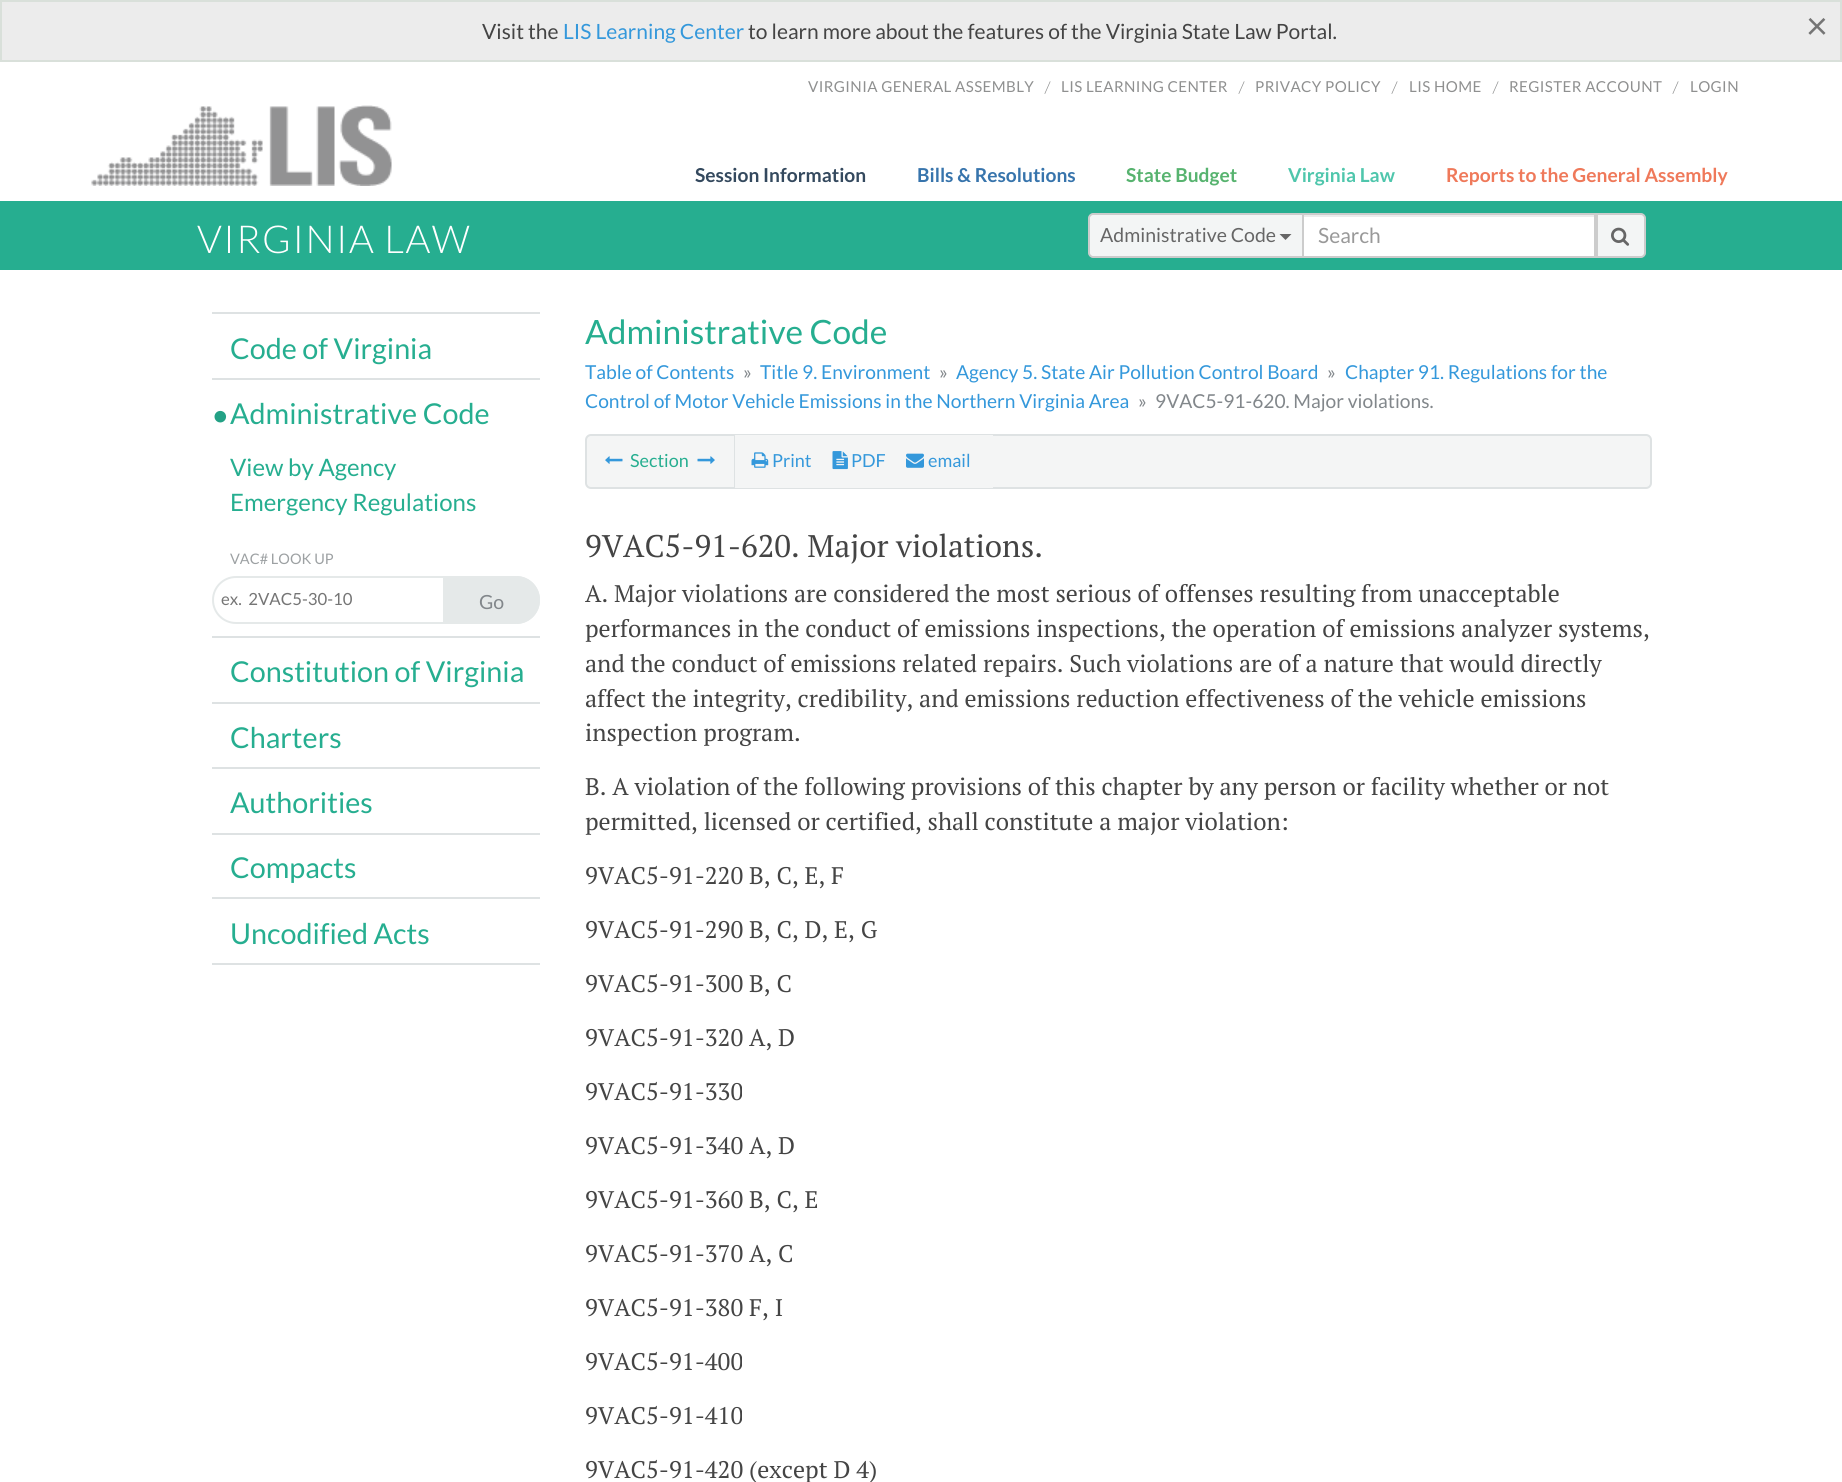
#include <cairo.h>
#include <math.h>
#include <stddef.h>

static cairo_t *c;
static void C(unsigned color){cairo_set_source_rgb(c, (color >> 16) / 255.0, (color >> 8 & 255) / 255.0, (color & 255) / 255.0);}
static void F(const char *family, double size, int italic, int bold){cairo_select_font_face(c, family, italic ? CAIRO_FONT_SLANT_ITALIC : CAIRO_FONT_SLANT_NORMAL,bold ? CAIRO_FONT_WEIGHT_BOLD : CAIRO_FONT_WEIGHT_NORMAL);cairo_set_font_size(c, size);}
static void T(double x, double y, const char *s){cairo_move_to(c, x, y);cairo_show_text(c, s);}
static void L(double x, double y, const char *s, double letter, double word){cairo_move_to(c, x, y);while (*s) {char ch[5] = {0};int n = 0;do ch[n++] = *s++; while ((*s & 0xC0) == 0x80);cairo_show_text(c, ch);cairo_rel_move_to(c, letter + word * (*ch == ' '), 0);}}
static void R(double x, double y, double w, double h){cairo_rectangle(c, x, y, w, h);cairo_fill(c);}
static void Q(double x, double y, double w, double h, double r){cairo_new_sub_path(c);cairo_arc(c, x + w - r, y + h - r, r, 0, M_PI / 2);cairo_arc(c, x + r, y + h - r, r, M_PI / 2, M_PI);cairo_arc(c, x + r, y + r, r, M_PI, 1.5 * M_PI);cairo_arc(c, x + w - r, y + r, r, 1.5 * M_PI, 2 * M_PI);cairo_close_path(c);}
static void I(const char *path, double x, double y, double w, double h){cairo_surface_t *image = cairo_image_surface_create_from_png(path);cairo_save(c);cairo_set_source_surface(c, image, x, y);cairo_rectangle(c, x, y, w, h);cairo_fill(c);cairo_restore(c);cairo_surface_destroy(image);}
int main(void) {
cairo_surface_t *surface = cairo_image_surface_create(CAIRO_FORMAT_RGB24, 1842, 1482);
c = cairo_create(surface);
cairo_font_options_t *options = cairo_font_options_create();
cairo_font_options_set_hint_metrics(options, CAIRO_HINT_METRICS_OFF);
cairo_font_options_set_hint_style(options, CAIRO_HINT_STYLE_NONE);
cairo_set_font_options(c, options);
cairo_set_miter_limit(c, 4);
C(0xffffff);
cairo_paint(c);
C(0xececec);
cairo_rectangle(c,1,1,1840,60);
cairo_fill_preserve(c);
C(0xd9e0da);
cairo_stroke(c);
F("Lato",21,0,0);
C(0x444444);
T(482,39,"Visit the");
C(0x3498db);
T(563,39,"LIS Learning Center");
C(0x444444);
T(748,39,"to learn more about the features of the Virginia State Law Portal.");
F("Lato",38,0,0);
C(0x757575);
T(1806,39,"×");
F("Lato",15.1,0,0);
C(0x8f9090);
L(808,92,"VIRGINIA GENERAL ASSEMBLY",.4,0);
F("PT Serif",15.1,0,0);
T(1045,92,"/");
F("Lato",15.1,0,0);
L(1061,92,"LIS LEARNING CENTER",.4,0);
F("PT Serif",15.1,0,0);
T(1239,92,"/");
F("Lato",15.1,0,0);
L(1255,92,"PRIVACY POLICY",.4,0);
F("PT Serif",15.1,0,0);
T(1392,92,"/");
F("Lato",15.1,0,0);
L(1409,92,"LIS HOME",.4,0);
F("PT Serif",15.1,0,0);
T(1493,92,"/");
F("Lato",15.1,0,0);
L(1509,92,"REGISTER ACCOUNT",.4,0);
F("PT Serif",15.1,0,0);
T(1673,92,"/");
F("Lato",15.1,0,0);
L(1690,92,"LOGIN",.4,0);
I("1.png",91,105,301,81);
F("Lato",19.2,0,1);
C(0x34495e);
T(695,182,"Session Information");
C(0x3774ac);
T(917,182,"Bills & Resolutions");
C(0x57b36f);
T(1126,182,"State Budget");
C(0x4fc6ac);
T(1288,182,"Virginia Law");
C(0xef795a);
T(1446,182,"Reports to the General Assembly");
C(0x26ae90);
R(0,201,1842,69);
F("Lato Light",38.5,0,0);
C(0xffffff);
L(197,253,"VIRGINIA LAW",1.5,0);
R(1304,217,290,39);
C(0xececec);
R(1304,215,291,2);
cairo_rectangle(c,1303,214,292,43);
C(0xcccccc);
cairo_stroke(c);
C(0xf3f5f5);
cairo_new_path(c);
cairo_move_to(c,1093,214);
cairo_line_to(c,1303,214);
cairo_line_to(c,1303,257);
cairo_line_to(c,1093,257);
cairo_curve_to(c,1091,257,1089,255,1089,253);
cairo_line_to(c,1089,218);
cairo_curve_to(c,1089,216,1091,214,1093,214);
cairo_close_path(c);
cairo_fill_preserve(c);
C(0xcccccc);
cairo_stroke(c);
F("Lato",19.5,0,0);
C(0x666666);
T(1100,242,"Administrative Code");
cairo_new_path(c);
cairo_move_to(c,1279.5,234);
cairo_line_to(c,1291.5,234);
cairo_line_to(c,1285.5,240);
cairo_close_path(c);
cairo_fill(c);
F("Lato",21,0,0);
C(0x999999);
T(1318,243,"Search");
C(0xf3f5f5);
cairo_new_path(c);
cairo_move_to(c,1597,214);
cairo_line_to(c,1641,214);
cairo_curve_to(c,1643,214,1645,216,1645,218);
cairo_line_to(c,1645,253);
cairo_curve_to(c,1645,255,1643,257,1641,257);
cairo_line_to(c,1597,257);
cairo_close_path(c);
cairo_fill_preserve(c);
C(0xcccccc);
cairo_stroke(c);
I("2.png",1611,227,19,19);
C(0xdee2e3);
R(212,312,328,2);
F("Lato",28.75,0,0);
C(0x26ae90);
T(230,359,"Code of Virginia");
C(0xdee2e3);
R(212,378,328,2);
I("3.png",214,410,13,13);
C(0x26ae90);
T(230,424,"Administrative Code");
F("Lato",24,0,0);
T(230,476,"View by Agency");
T(230,511,"Emergency Regulations");
F("Lato",14.5,0,0);
C(0x9da1a3);
T(230,564,"VAC# LOOK UP");
Q(213,577,326,46,23);
C(0xe5e9e9);
cairo_stroke(c);
F("Lato",16.75,0,0);
C(0x757575);
T(221,605,"ex.  2VAC5-30-10");
C(0xe5e9e9);
cairo_new_path(c);
cairo_move_to(c,443,576);
cairo_line_to(c,516,576);
cairo_curve_to(c,529.5,576,540,586.5,540,600);
cairo_curve_to(c,540,613.5,529.5,624,516,624);
cairo_line_to(c,443,624);
cairo_close_path(c);
cairo_fill(c);
F("Lato",19.5,0,0);
C(0x82878b);
T(479,609,"Go");
C(0xdee2e3);
R(212,636,328,2);
F("Lato",28.75,0,0);
C(0x26ae90);
T(230,682,"Constitution of Virginia");
C(0xdee2e3);
R(212,702,328,2);
C(0x26ae90);
T(230,748,"Charters");
C(0xdee2e3);
R(212,767,328,2);
C(0x26ae90);
T(230,813,"Authorities");
C(0xdee2e3);
R(212,833,328,2);
C(0x26ae90);
T(230,878,"Compacts");
C(0xdee2e3);
R(212,897,328,2);
R(212,963,328,2);
C(0x26ae90);
T(230,944,"Uncodified Acts");
F("Lato",33.5,0,0);
T(585,344,"Administrative Code");
F("Lato",19.2,0,0);
C(0x3498db);
T(585,379,"Table of Contents");
C(0x82878b);
T(743,379,"»");
C(0x3498db);
T(760,379,"Title 9. Environment");
C(0x82878b);
T(939,379,"»");
C(0x3498db);
T(956,379,"Agency 5. State Air Pollution Control Board");
C(0x82878b);
T(1327,379,"»");
C(0x3498db);
T(1345,379,"Chapter 91. Regulations for the");
T(585,408,"Control of Motor Vehicle Emissions in the Northern Virginia Area");
C(0x82878b);
T(1138,408,"»");
T(1155,408,"9VAC5-91-620. Major violations.");
C(0xf4f5f5);
Q(586,435,1065,53,5);
cairo_fill_preserve(c);
C(0xdee2e3);
cairo_stroke(c);
R(734,435,1,53);
I("4.png",605,456,18,8);
F("Lato",18,0,0);
C(0x26ae90);
T(630,467,"Section");
I("5.png",697,456,18,8);
C(0xf4f5f5);
R(735,435,258,53);
I("6.png",751,452,18,16);
C(0x3498db);
T(772,467,"Print");
I("7.png",832,451,16,19);
T(851,467,"PDF");
I("8.png",906,453,18,15);
T(928,467,"email");
F("PT Serif",31.25,0,0);
C(0x444444);
T(585,557,"9VAC5-91-620. Major violations.");
F("PT Serif",24,0,0);
T(585,602,"A. Major violations are considered the most serious of offenses resulting from unacceptable");
T(585,637,"performances in the conduct of emissions inspections, the operation of emissions analyzer systems,");
T(585,672,"and the conduct of emissions related repairs. Such violations are of a nature that would directly");
T(585,707,"affect the integrity, credibility, and emissions reduction effectiveness of the vehicle emissions");
T(585,741,"inspection program.");
T(585,795,"B. A violation of the following provisions of this chapter by any person or facility whether or not");
T(585,830,"permitted, licensed or certified, shall constitute a major violation:");
T(585,884,"9VAC5-91-220 B, C, E, F");
T(585,938,"9VAC5-91-290 B, C, D, E, G");
T(585,992,"9VAC5-91-300 B, C");
T(585,1046,"9VAC5-91-320 A, D");
T(585,1100,"9VAC5-91-330");
T(585,1154,"9VAC5-91-340 A, D");
T(585,1208,"9VAC5-91-360 B, C, E");
T(585,1262,"9VAC5-91-370 A, C");
T(585,1316,"9VAC5-91-380 F, I");
T(585,1370,"9VAC5-91-400");
T(585,1424,"9VAC5-91-410");
T(585,1478,"9VAC5-91-420 (except D 4)");
cairo_surface_write_to_png(surface, "o.png");
cairo_font_options_destroy(options);
cairo_destroy(c);
cairo_surface_destroy(surface);
return 0;
}
